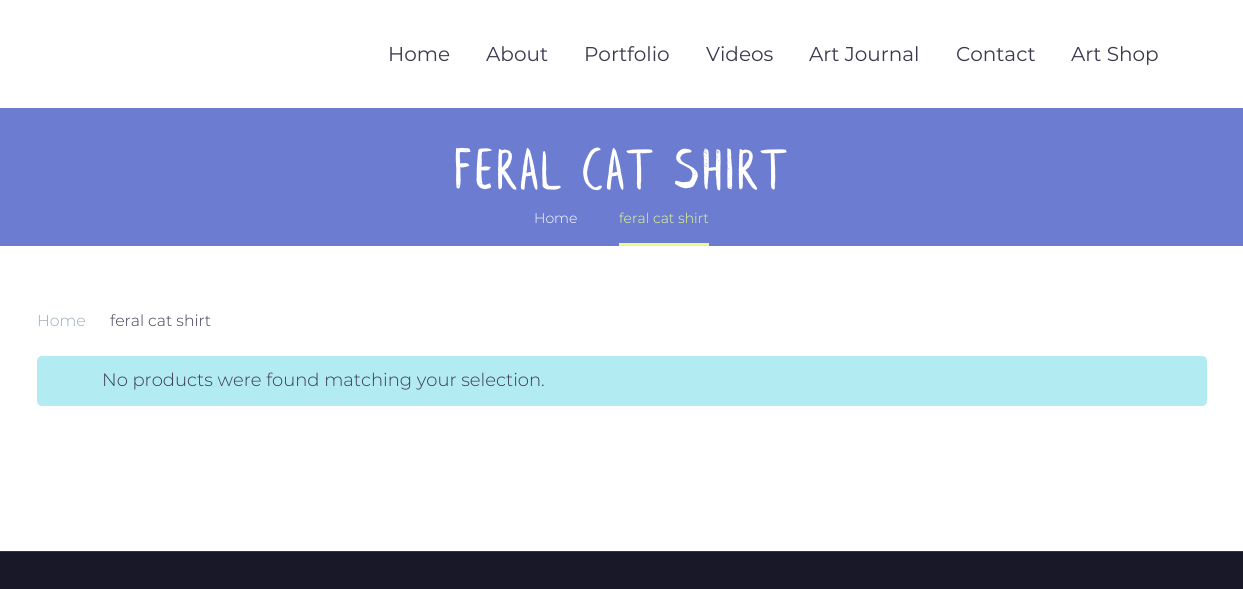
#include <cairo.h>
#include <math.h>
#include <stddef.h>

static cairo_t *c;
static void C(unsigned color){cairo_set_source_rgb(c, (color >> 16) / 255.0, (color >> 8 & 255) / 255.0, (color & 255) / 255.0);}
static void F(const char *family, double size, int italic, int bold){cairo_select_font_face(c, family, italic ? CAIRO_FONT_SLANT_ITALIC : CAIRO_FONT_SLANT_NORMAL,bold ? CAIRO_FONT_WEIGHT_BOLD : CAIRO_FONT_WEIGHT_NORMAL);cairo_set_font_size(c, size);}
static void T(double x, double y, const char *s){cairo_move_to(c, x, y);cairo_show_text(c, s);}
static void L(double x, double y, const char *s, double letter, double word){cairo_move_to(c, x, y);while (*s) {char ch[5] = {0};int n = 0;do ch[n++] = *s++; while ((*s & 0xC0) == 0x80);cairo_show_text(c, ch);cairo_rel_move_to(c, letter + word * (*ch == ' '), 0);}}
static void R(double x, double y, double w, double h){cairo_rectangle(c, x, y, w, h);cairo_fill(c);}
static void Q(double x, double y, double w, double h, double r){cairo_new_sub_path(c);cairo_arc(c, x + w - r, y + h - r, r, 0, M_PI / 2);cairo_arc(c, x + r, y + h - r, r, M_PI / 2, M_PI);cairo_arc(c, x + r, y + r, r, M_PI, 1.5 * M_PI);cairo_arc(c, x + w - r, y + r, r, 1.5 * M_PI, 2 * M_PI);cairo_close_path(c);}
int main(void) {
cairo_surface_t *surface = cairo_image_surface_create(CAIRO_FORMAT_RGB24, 1243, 589);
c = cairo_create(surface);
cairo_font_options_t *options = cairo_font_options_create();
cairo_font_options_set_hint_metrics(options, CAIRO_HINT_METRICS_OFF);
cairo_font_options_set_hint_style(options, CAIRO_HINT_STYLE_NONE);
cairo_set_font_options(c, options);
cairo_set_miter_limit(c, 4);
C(0xffffff);
cairo_paint(c);
F("Montserrat Thin",20,0,0);
C(0x3c3950);
T(388,61,"Home");
T(486,61,"About");
T(584,61,"Portfolio");
T(706,61,"Videos");
T(809,61,"Art Journal");
T(956,61,"Contact");
T(1071,61,"Art Shop");
C(0x6c7cd0);
R(0,108,1243,138);
F("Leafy",60,0,0);
C(0xffffff);
L(454,190,"feral cat shirt",3,0);
F("Montserrat Light",14,0,0);
T(534,223,"Home");
C(0xe7ff89);
R(619,243,90,3);
T(619,223,"feral cat shirt");
F("Montserrat Light",15.75,0,0);
C(0x99a9b5);
T(37,326,"Home");
C(0x3c3950);
T(110,326,"feral cat shirt");
C(0xb2ebf2);
Q(37,356,1170,50,5);
cairo_fill(c);
F("Montserrat Light",18,0,0);
C(0x3c3950);
T(102,386,"No products were found matching your selection.");
C(0x181828);
R(0,552,1243,37);
C(0x313646);
R(0,551,1243,1);
cairo_surface_write_to_png(surface, "o.png");
cairo_font_options_destroy(options);
cairo_destroy(c);
cairo_surface_destroy(surface);
return 0;
}
